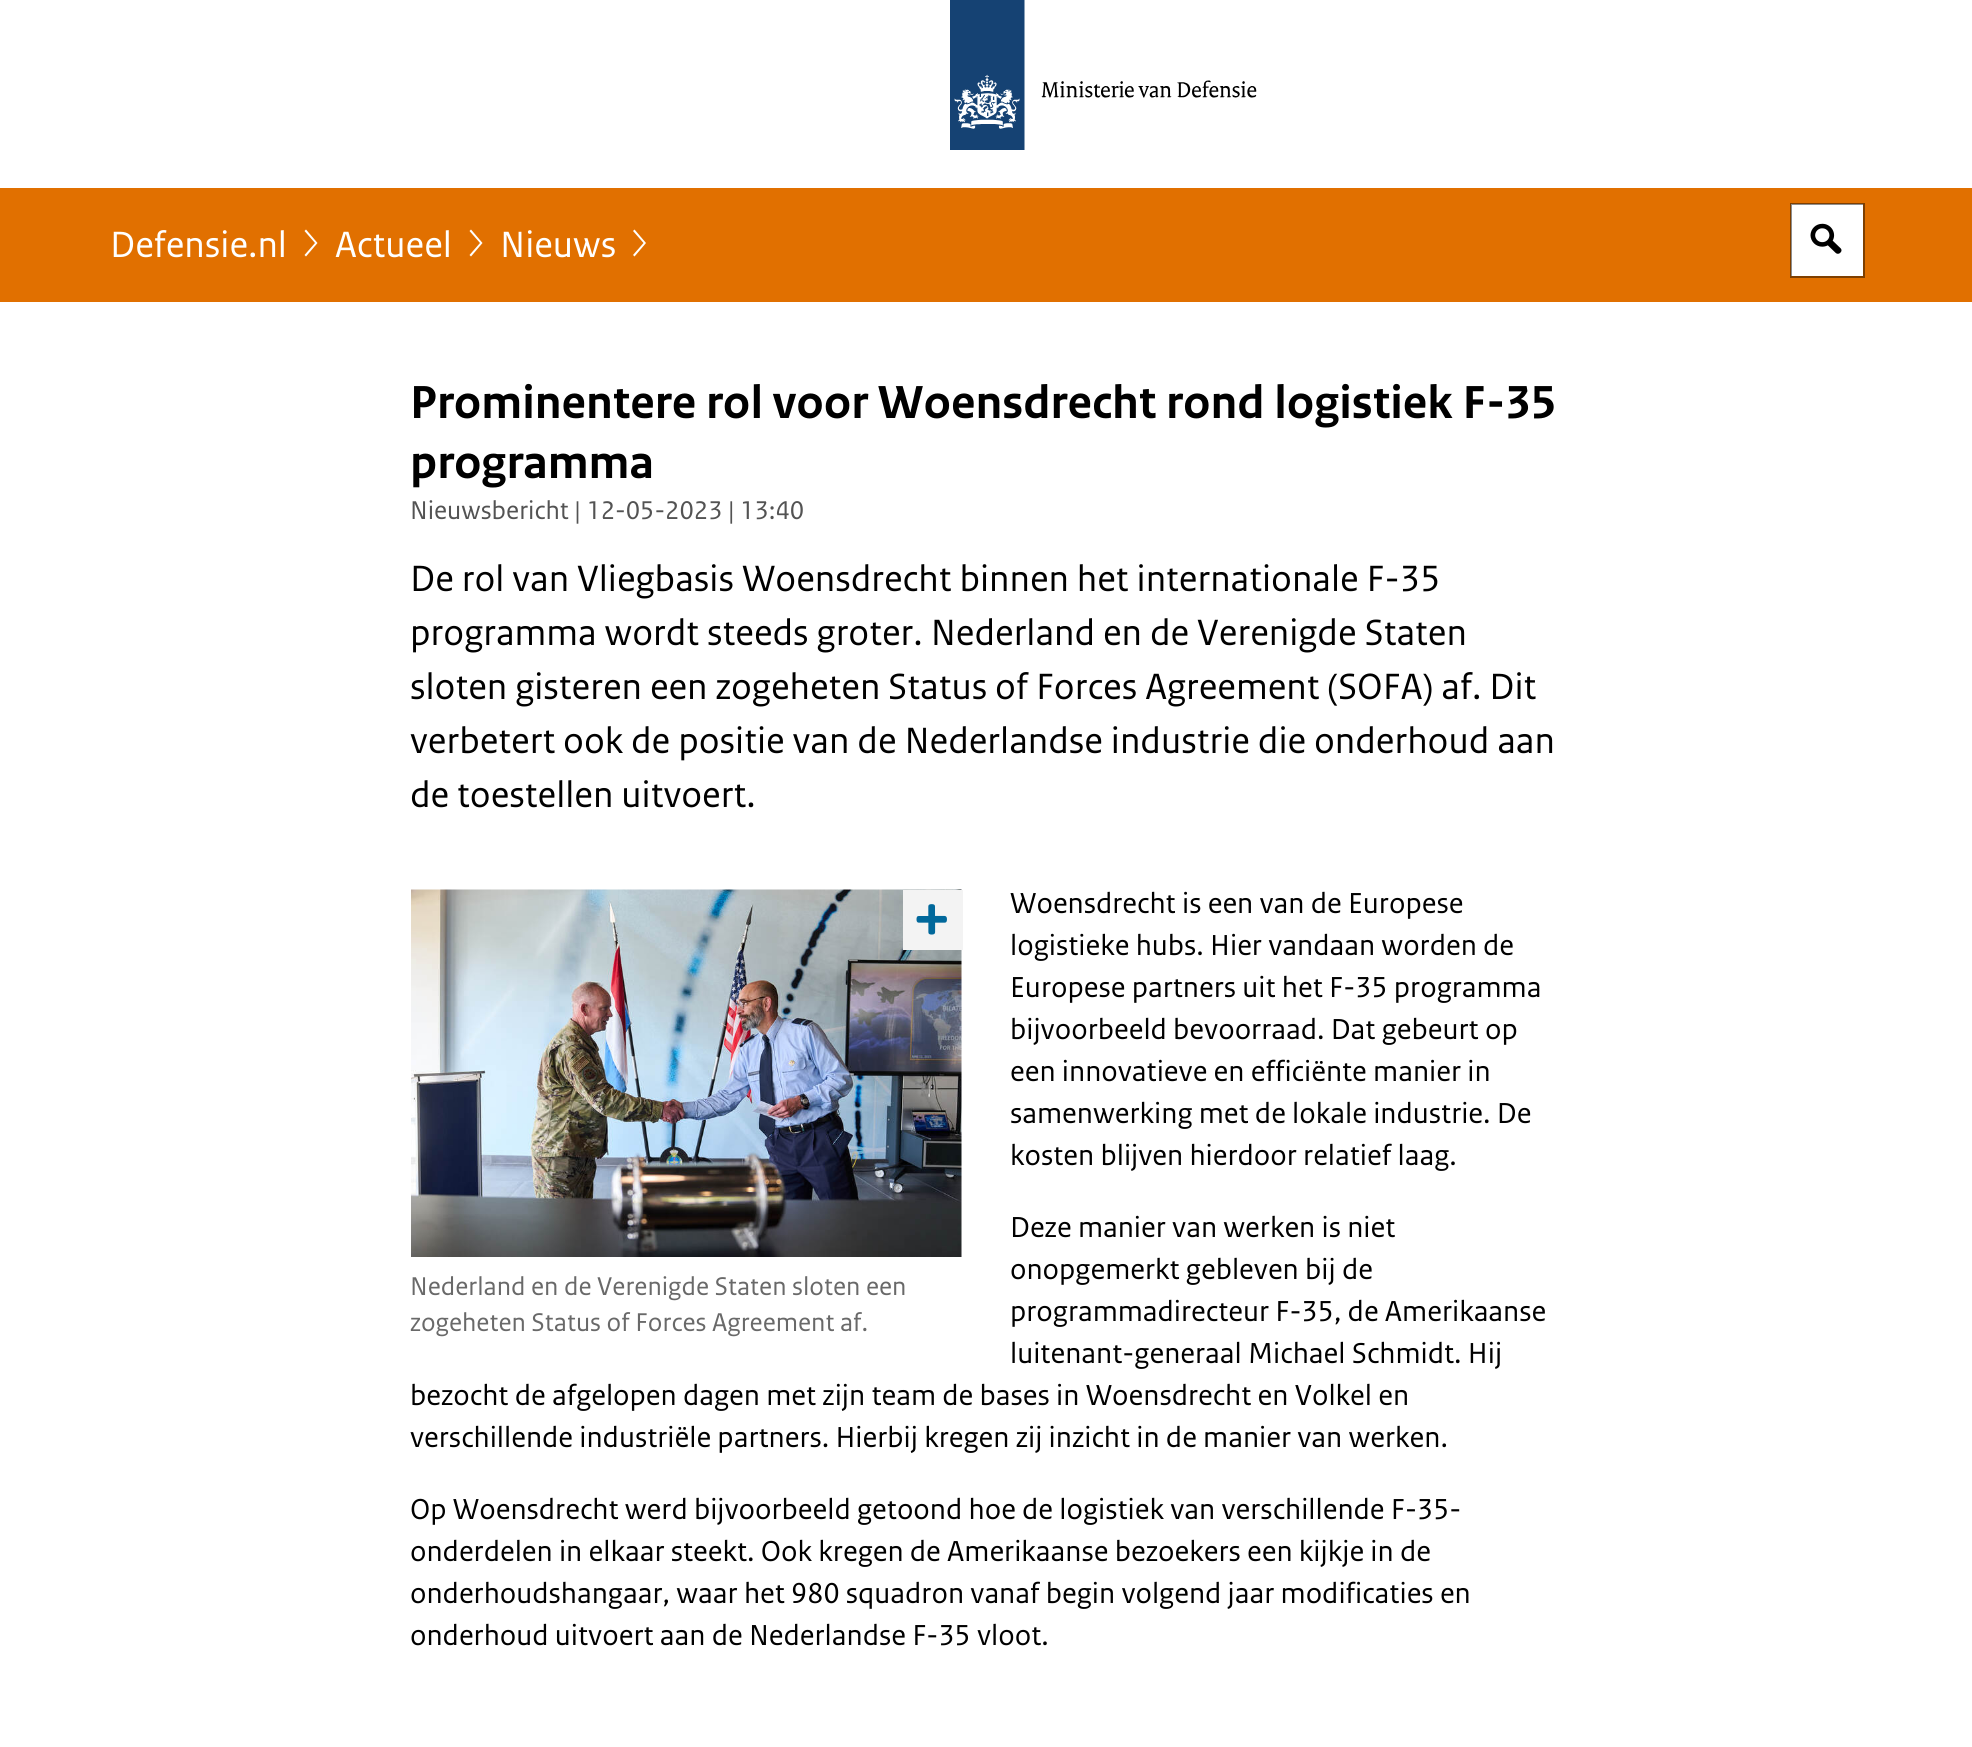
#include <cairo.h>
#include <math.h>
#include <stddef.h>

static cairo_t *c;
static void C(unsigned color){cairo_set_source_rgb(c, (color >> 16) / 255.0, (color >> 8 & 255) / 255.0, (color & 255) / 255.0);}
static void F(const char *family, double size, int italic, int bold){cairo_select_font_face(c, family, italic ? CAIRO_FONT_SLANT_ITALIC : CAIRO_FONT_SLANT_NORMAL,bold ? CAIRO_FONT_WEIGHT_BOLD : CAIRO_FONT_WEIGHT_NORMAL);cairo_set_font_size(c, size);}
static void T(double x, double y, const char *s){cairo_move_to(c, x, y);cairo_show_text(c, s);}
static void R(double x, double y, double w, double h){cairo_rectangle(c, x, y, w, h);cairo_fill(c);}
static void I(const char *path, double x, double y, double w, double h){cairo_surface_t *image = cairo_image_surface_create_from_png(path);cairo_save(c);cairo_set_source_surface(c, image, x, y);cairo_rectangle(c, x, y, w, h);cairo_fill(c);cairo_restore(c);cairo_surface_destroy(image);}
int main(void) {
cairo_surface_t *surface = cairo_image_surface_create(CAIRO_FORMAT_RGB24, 1972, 1747);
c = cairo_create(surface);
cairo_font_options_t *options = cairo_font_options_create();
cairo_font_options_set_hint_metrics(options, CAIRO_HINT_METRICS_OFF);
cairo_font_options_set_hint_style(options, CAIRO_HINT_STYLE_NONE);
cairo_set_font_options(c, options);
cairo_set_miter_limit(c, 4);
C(0xffffff);
cairo_paint(c);
I("1.png",950,0,307,150);
C(0xe17000);
R(0,188,1972,114);
F("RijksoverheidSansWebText",38.45,0,0);
C(0xffffff);
T(110,257,"Defensie.nl");
cairo_new_path(c);
cairo_move_to(c,306,256.5);
cairo_line_to(c,304.5,255);
cairo_line_to(c,315,243);
cairo_line_to(c,304.5,231);
cairo_line_to(c,306,229.5);
cairo_line_to(c,317.5,243);
cairo_close_path(c);
cairo_fill(c);
T(335,257,"Actueel");
cairo_new_path(c);
cairo_move_to(c,471,256.5);
cairo_line_to(c,469.5,255);
cairo_line_to(c,480,243);
cairo_line_to(c,469.5,231);
cairo_line_to(c,471,229.5);
cairo_line_to(c,482.5,243);
cairo_close_path(c);
cairo_fill(c);
T(500,257,"Nieuws");
cairo_new_path(c);
cairo_move_to(c,634.5,256.5);
cairo_line_to(c,633,255);
cairo_line_to(c,643.5,243);
cairo_line_to(c,633,231);
cairo_line_to(c,634.5,229.5);
cairo_line_to(c,646,243);
cairo_close_path(c);
cairo_fill(c);
R(1791,204,72,72);
cairo_rectangle(c,1791,204,73,73);
cairo_set_source_rgba(c,0,0,0,0.44);
cairo_stroke(c);
I("2.png",1810,223,32,31);
F("RijksoverheidSansWebText",48.65,0,1);
C(0x000000);
T(410,418,"Prominentere rol voor Woensdrecht rond logistiek F-35");
T(410,478,"programma");
F("RijksoverheidSansWebText",27,0,0);
C(0x535353);
T(410,519,"Nieuwsbericht | 12-05-2023 | 13:40");
F("RijksoverheidSansWebText",38.45,0,0);
C(0x000000);
T(410,591,"De rol van Vliegbasis Woensdrecht binnen het internationale F-35");
T(410,645,"programma wordt steeds groter. Nederland en de Verenigde Staten");
T(410,699,"sloten gisteren een zogeheten");
T(888,699,"Status of Forces Agreement");
T(1327,699,"(SOFA) af. Dit");
T(410,753,"verbetert ook de positie van de Nederlandse industrie die onderhoud aan");
T(410,807,"de toestellen uitvoert.");
F("RijksoverheidSansWebText",30.4,0,0);
T(1010,913,"Woensdrecht is een van de Europese");
T(1010,955,"logistieke hubs. Hier vandaan worden de");
T(1010,997,"Europese partners uit het F-35 programma");
T(1010,1039,"bijvoorbeeld bevoorraad. Dat gebeurt op");
T(1010,1081,"een innovatieve en efficiënte manier in");
T(1010,1123,"samenwerking met de lokale industrie. De");
T(1010,1165,"kosten blijven hierdoor relatief laag.");
T(1010,1237,"Deze manier van werken is niet");
T(1010,1279,"onopgemerkt gebleven bij de");
T(1010,1321,"programmadirecteur F-35, de Amerikaanse");
T(1010,1363,"luitenant-generaal Michael Schmidt. Hij");
T(410,1405,"bezocht de afgelopen dagen met zijn team de bases in Woensdrecht en Volkel en");
T(410,1447,"verschillende industriële partners. Hierbij kregen zij inzicht in de manier van werken.");
I("3.png",411,889,551,368);
C(0xf3f3f3);
R(903,890,60,60);
I("4.png",916,904,31,31);
F("RijksoverheidSansWebText",27,0,0);
C(0x696969);
T(410,1295,"Nederland en de Verenigde Staten sloten een");
T(410,1331,"zogeheten Status of Forces Agreement af.");
F("RijksoverheidSansWebText",30.4,0,0);
C(0x000000);
T(410,1519,"Op Woensdrecht werd bijvoorbeeld getoond hoe de logistiek van verschillende F-35-");
T(410,1561,"onderdelen in elkaar steekt. Ook kregen de Amerikaanse bezoekers een kijkje in de");
T(410,1603,"onderhoudshangaar, waar het 980 squadron vanaf begin volgend jaar modificaties en");
T(410,1645,"onderhoud uitvoert aan de Nederlandse F-35 vloot.");
cairo_surface_write_to_png(surface, "o.png");
cairo_font_options_destroy(options);
cairo_destroy(c);
cairo_surface_destroy(surface);
return 0;
}
